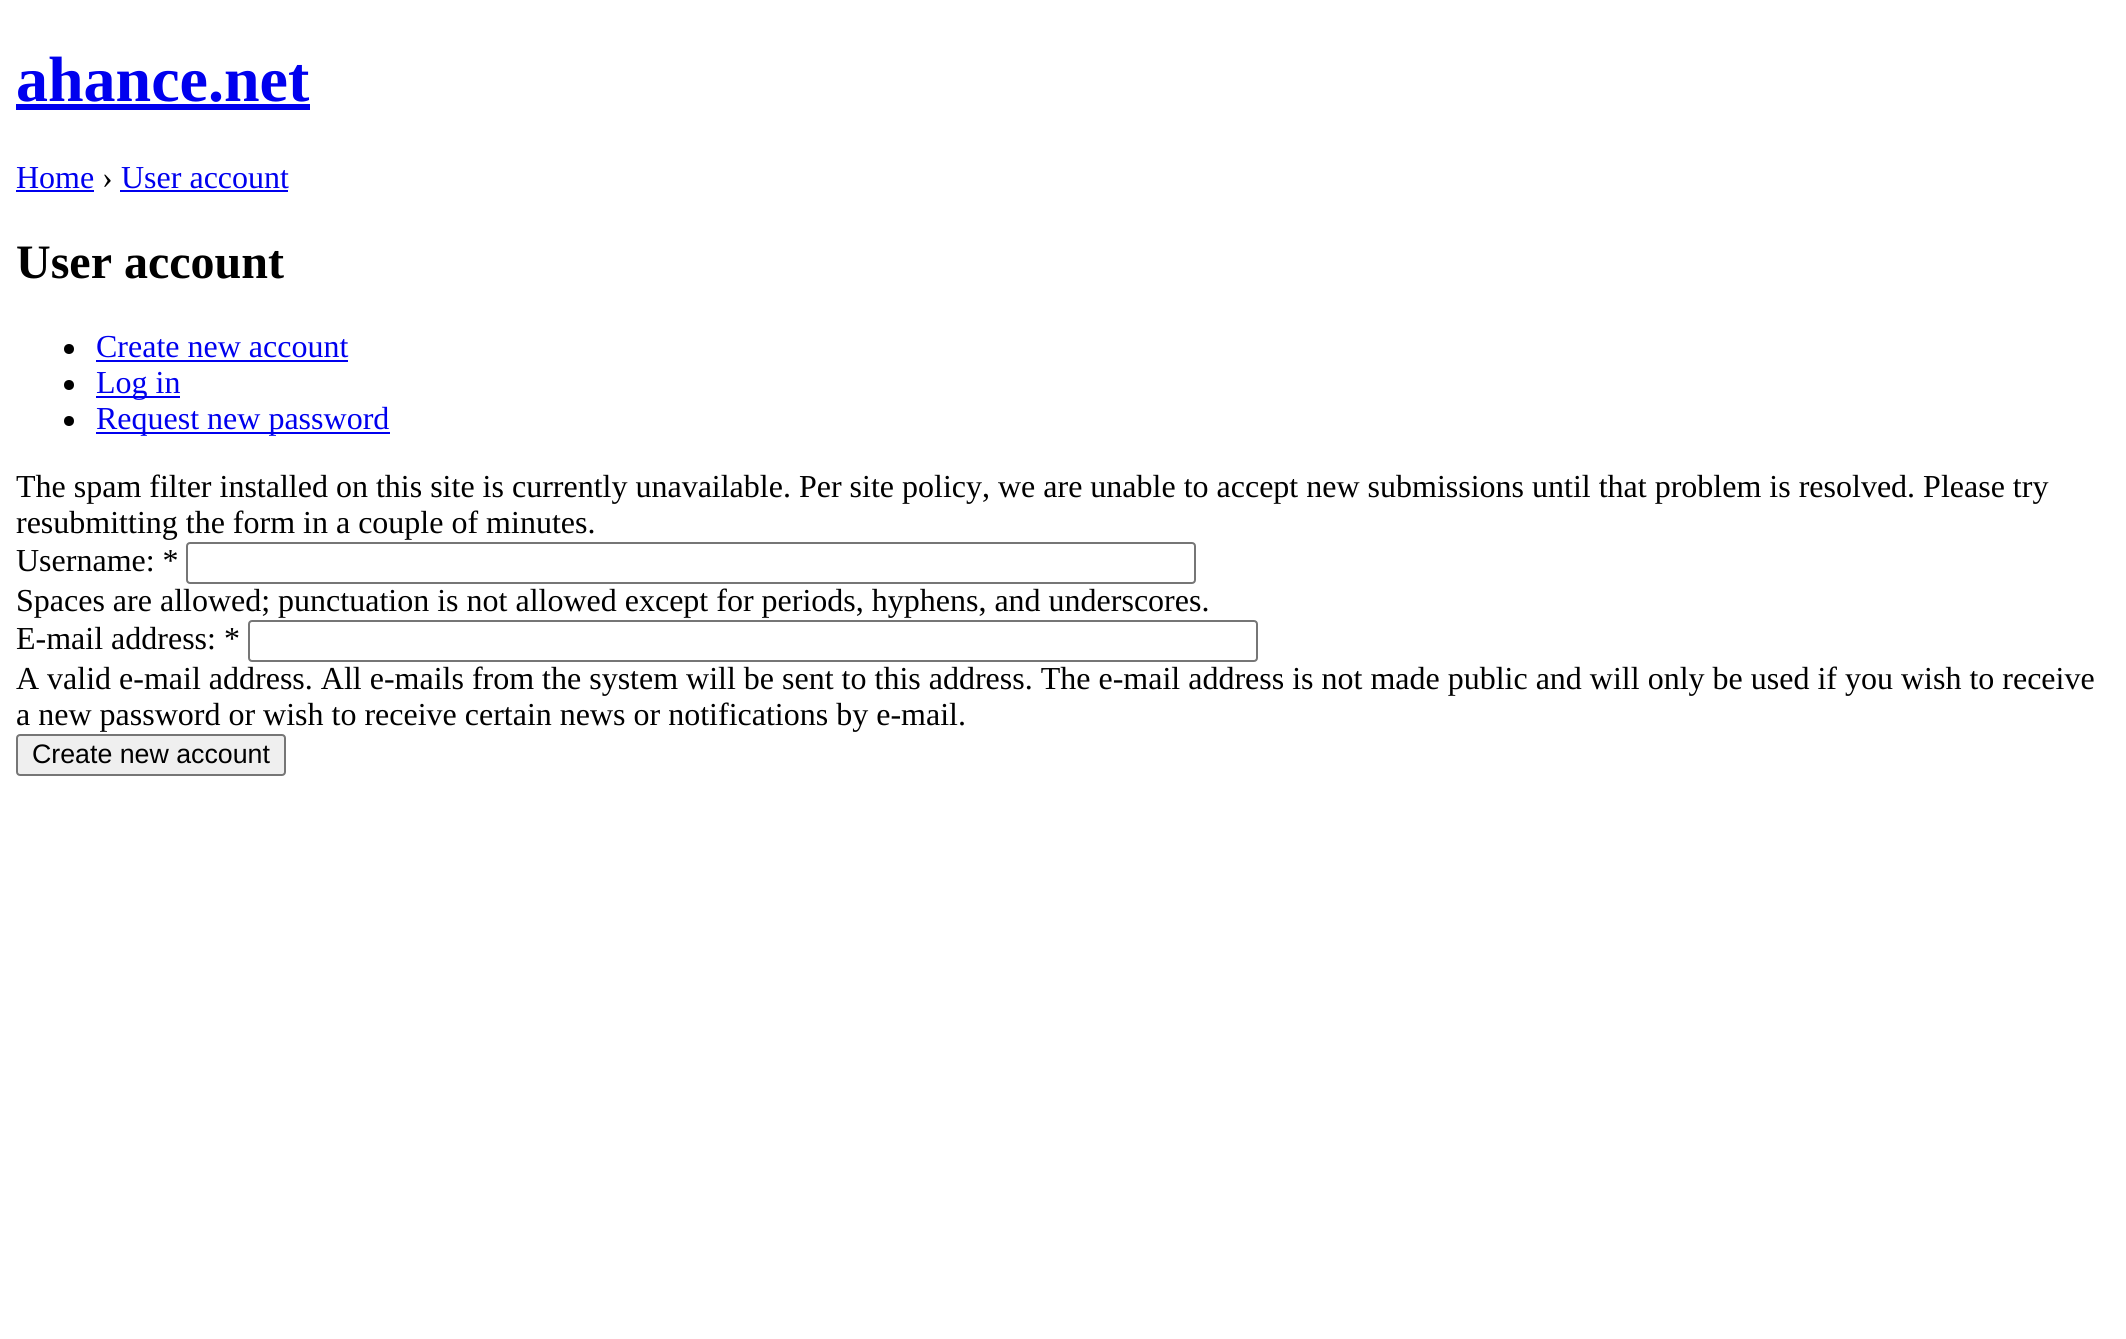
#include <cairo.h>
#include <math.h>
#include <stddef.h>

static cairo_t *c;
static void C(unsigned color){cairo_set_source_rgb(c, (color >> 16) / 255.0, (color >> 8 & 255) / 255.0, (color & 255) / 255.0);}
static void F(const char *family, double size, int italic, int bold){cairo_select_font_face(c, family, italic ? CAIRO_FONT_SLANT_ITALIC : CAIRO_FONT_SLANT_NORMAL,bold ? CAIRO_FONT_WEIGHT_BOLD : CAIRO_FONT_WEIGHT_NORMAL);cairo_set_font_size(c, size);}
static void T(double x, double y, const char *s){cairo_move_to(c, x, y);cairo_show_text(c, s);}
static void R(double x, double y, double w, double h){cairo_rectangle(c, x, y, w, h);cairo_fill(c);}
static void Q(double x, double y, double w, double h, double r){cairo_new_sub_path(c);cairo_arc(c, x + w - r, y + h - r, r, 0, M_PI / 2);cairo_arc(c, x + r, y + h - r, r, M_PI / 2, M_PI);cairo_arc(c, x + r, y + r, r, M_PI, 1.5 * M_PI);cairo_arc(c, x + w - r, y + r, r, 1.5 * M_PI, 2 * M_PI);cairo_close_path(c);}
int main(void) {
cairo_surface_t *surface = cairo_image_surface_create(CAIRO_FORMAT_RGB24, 2126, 1339);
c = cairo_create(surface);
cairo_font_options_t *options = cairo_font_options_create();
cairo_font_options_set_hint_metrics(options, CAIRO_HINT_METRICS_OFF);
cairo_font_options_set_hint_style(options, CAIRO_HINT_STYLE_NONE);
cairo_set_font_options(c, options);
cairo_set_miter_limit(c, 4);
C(0xffffff);
cairo_paint(c);
F("Liberation Serif",64,0,1);
C(0x0000ee);
T(16,101,"ahance.net");
R(16,104,294,6);
F("Liberation Serif",32,0,0);
T(16,188,"Home");
R(16,190,78,2);
C(0x000000);
T(102,188,"›");
C(0x0000ee);
T(121,188,"User account");
R(120,190,168,2);
F("Liberation Serif",48,0,1);
C(0x000000);
T(16,278,"User account");
cairo_new_path(c);
cairo_arc(c,69,349,5,0,2 * M_PI);
cairo_fill(c);
F("Liberation Serif",32,0,0);
C(0x0000ee);
T(96,357,"Create new account");
R(96,360,252,2);
C(0x000000);
cairo_new_path(c);
cairo_arc(c,69,385,5,0,2 * M_PI);
cairo_fill(c);
C(0x0000ee);
R(96,396,84,2);
T(96,393,"Log in");
C(0x000000);
cairo_new_path(c);
cairo_arc(c,69,421,5,0,2 * M_PI);
cairo_fill(c);
C(0x0000ee);
R(96,432,294,2);
T(96,429,"Request new password");
C(0x000000);
T(16,497,"The spam filter installed on this site is currently unavailable. Per site policy, we are unable to accept new submissions until that problem is resolved. Please try");
T(16,533,"resubmitting the form in a couple of minutes.");
T(16,571,"Username: *");
Q(187,543,1008,40,3);
C(0x767676);
cairo_stroke(c);
C(0x000000);
T(16,611,"Spaces are allowed; punctuation is not allowed except for periods, hyphens, and underscores.");
T(16,649,"E-mail address: *");
Q(249,621,1008,40,3);
C(0x767676);
cairo_stroke(c);
C(0x000000);
T(16,689,"A valid e-mail address. All e-mails from the system will be sent to this address. The e-mail address is not made public and will only be used if you wish to receive");
T(16,725,"a new password or wish to receive certain news or notifications by e-mail.");
C(0xefefef);
Q(17,735,268,40,3);
cairo_fill_preserve(c);
C(0x767676);
cairo_stroke(c);
F("Liberation Sans",26.75,0,0);
C(0x000000);
T(32,763,"Create new account");
cairo_surface_write_to_png(surface, "o.png");
cairo_font_options_destroy(options);
cairo_destroy(c);
cairo_surface_destroy(surface);
return 0;
}
